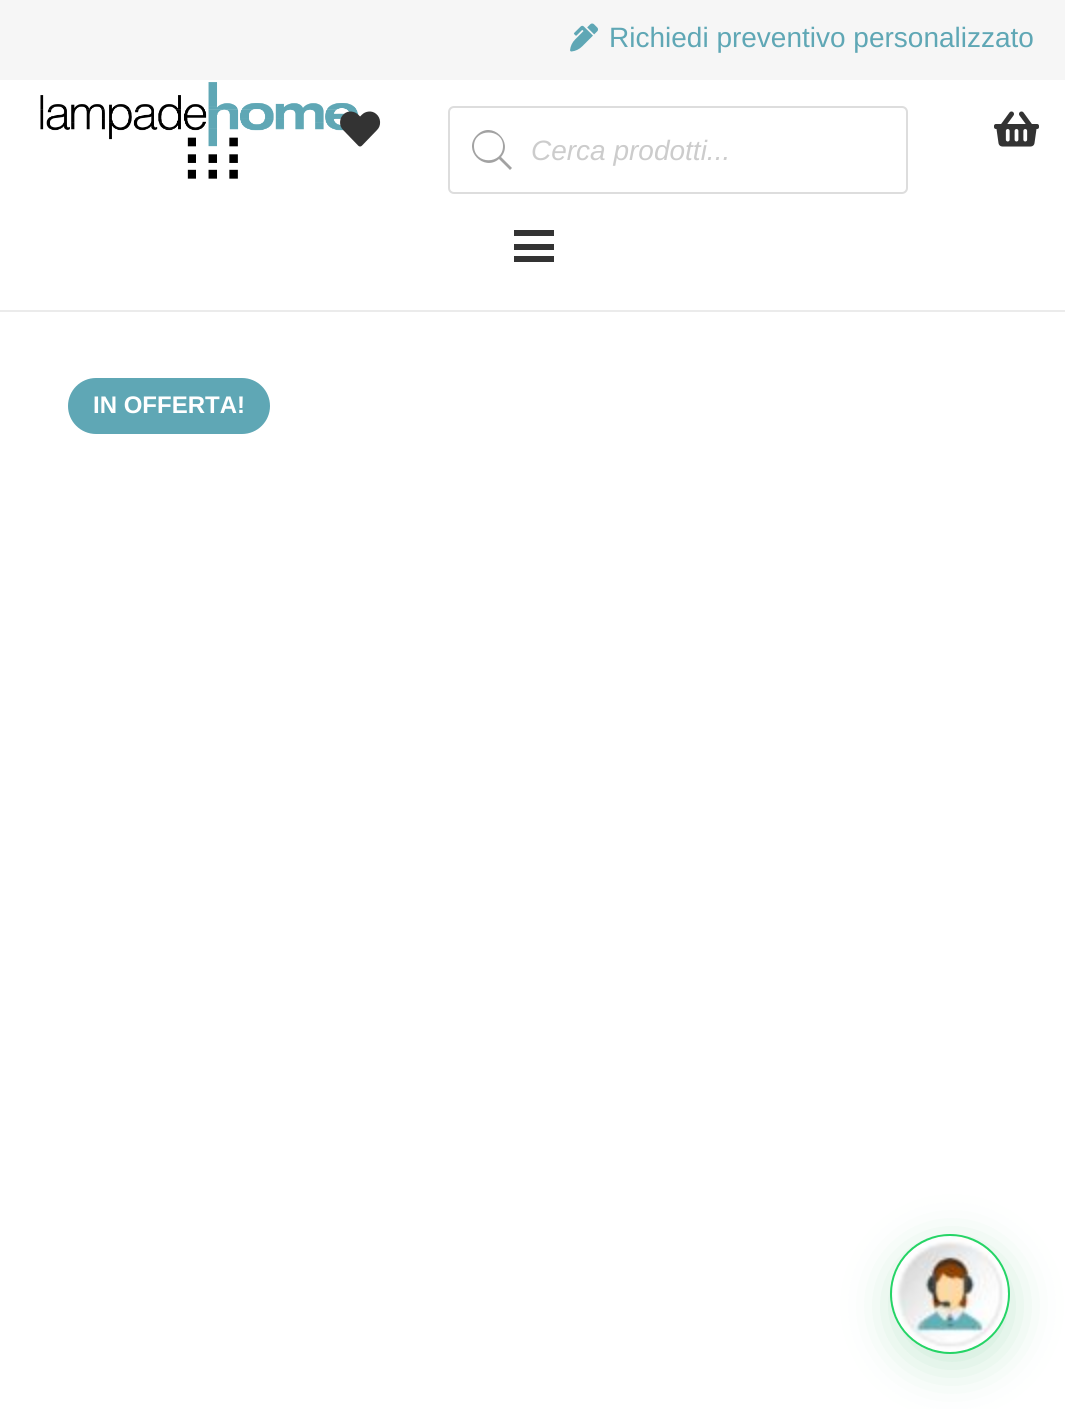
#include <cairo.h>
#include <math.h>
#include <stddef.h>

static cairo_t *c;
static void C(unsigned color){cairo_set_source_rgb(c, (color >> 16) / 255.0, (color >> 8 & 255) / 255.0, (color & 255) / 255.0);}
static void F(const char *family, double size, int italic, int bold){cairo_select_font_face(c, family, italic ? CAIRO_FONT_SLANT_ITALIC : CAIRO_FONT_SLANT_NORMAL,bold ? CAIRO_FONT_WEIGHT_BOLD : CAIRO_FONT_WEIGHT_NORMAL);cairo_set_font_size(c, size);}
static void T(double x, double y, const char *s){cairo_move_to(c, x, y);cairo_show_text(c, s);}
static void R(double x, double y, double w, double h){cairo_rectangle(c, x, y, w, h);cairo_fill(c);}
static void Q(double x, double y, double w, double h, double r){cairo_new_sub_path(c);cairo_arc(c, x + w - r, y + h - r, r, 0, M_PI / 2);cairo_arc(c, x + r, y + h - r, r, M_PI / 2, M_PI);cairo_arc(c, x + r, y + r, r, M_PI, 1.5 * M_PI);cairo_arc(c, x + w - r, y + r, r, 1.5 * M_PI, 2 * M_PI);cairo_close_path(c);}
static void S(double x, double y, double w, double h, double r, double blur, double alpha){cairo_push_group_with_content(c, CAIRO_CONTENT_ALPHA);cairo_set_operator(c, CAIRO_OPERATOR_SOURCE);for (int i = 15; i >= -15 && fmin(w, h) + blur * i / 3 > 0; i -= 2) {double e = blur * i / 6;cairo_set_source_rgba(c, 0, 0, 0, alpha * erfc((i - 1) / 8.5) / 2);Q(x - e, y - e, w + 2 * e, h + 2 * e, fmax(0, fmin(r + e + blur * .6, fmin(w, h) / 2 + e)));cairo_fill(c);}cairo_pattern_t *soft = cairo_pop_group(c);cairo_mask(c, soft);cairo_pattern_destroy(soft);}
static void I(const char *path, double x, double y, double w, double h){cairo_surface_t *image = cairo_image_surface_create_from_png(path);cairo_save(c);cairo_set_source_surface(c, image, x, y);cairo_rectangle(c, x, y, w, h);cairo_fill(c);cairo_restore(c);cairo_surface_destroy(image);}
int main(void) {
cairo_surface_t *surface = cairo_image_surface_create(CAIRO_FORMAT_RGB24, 1065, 1409);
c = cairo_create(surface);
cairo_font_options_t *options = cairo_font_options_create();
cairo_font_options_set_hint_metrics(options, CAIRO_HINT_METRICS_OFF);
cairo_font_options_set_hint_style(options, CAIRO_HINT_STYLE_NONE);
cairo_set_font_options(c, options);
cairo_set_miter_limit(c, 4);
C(0xffffff);
cairo_paint(c);
C(0xf6f6f6);
R(0,0,1065,80);
I("1.png",570,23,28,29);
F("Liberation Sans",28,0,0);
C(0x5fa7b5);
T(609,47,"Richiedi preventivo personalizzato");
I("2.png",40,82,319,97);
I("3.png",340,111,41,36);
I("4.png",994,111,45,36);
Q(449,107,458,86,5);
C(0xdddddd);
cairo_stroke(c);
C(0xa2a2a2);
cairo_new_path(c);
cairo_move_to(c,512,168);
cairo_line_to(c,501,157);
cairo_curve_to(c,514,142,492,120,477,135);
cairo_curve_to(c,462,150,484,172,499,159);
cairo_line_to(c,510,170);
cairo_close_path(c);
cairo_move_to(c,474,146);
cairo_curve_to(c,474,128,503,128,503,146);
cairo_curve_to(c,503,165,474,165,474,146);
cairo_close_path(c);
cairo_fill(c);
F("Liberation Sans",28,1,0);
C(0xcccccc);
T(531,160,"Cerca prodotti...");
C(0xebebeb);
R(0,310,1065,2);
C(0x333333);
R(514,244,40,6);
R(514,230,40,6);
R(514,256,40,6);
C(0x5fa7b5);
Q(68,378,202,56,28);
cairo_fill(c);
F("Liberation Sans",24,0,1);
C(0xffffff);
T(93,413,"IN OFFERTA!");
C(0x1ea951);
S(892,1246,120,120,60,24,.24);
C(0x25d466);
cairo_arc(c,950,1294,60,0,2 * M_PI);
cairo_fill(c);
I("5.png",892,1236,116,116);
cairo_surface_write_to_png(surface, "o.png");
cairo_font_options_destroy(options);
cairo_destroy(c);
cairo_surface_destroy(surface);
return 0;
}
